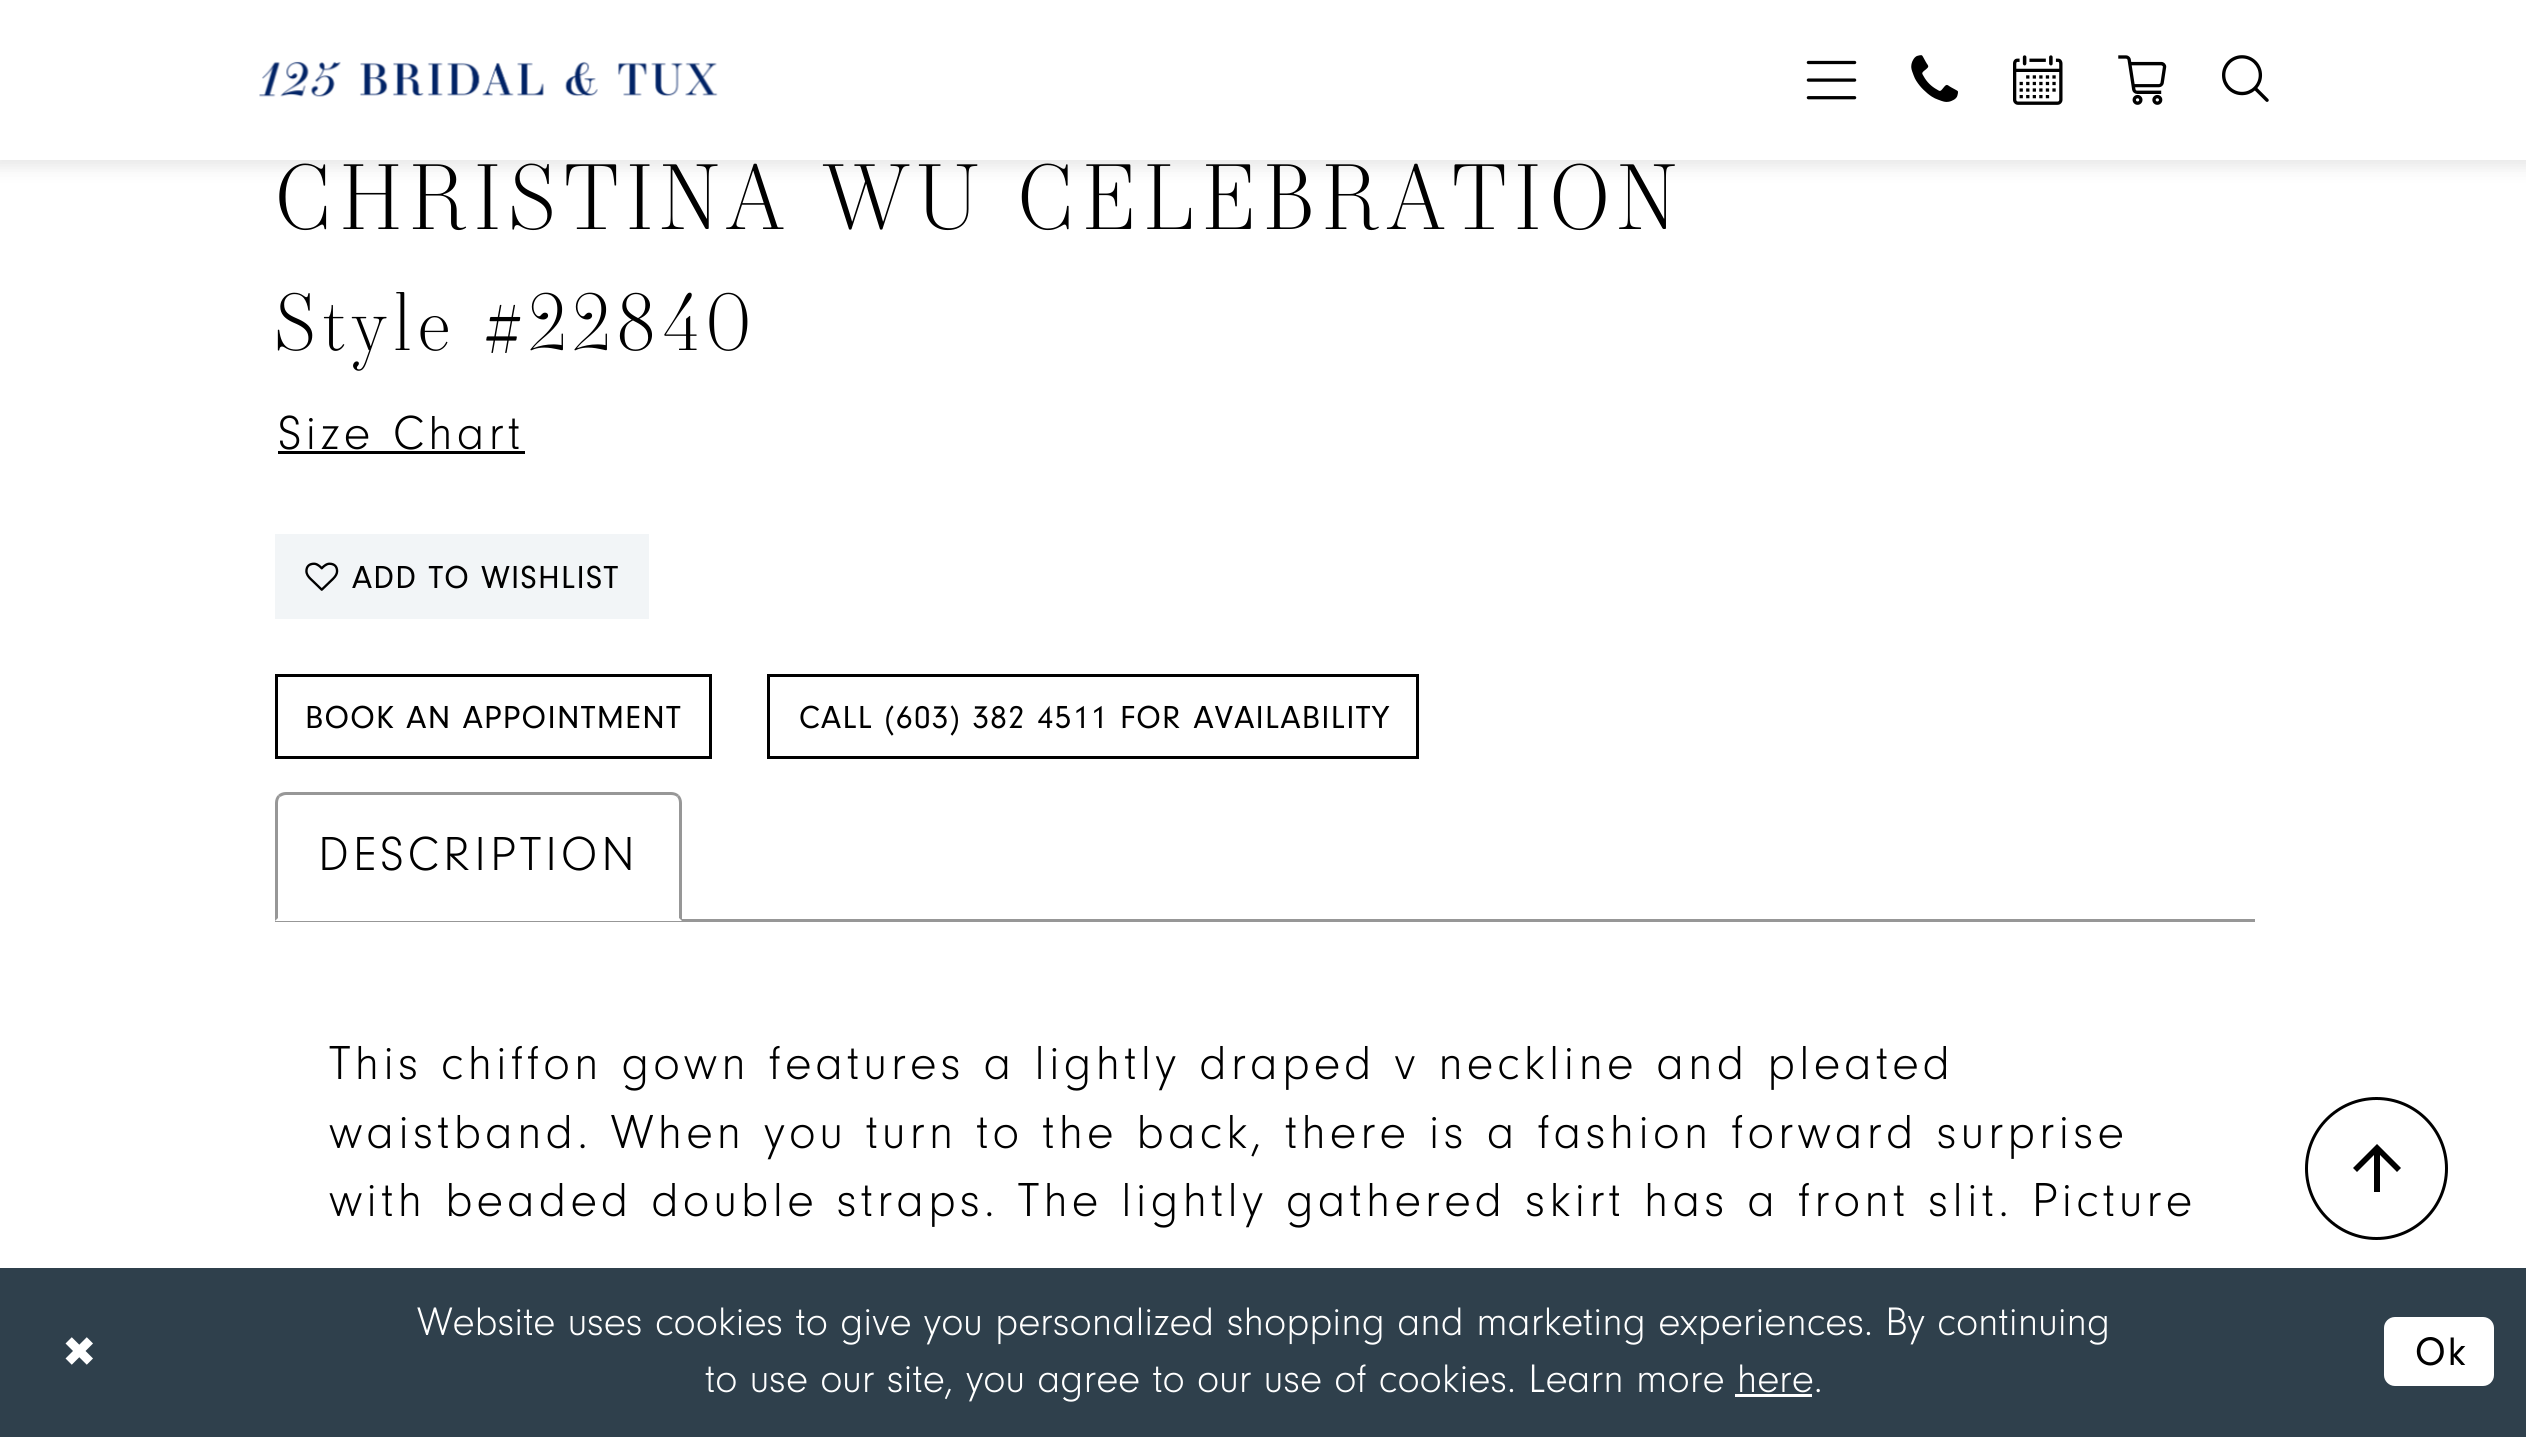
#include <cairo.h>
#include <math.h>
#include <stddef.h>

static cairo_t *c;
static void C(unsigned color){cairo_set_source_rgb(c, (color >> 16) / 255.0, (color >> 8 & 255) / 255.0, (color & 255) / 255.0);}
static void F(const char *family, double size, int italic, int bold){cairo_select_font_face(c, family, italic ? CAIRO_FONT_SLANT_ITALIC : CAIRO_FONT_SLANT_NORMAL,bold ? CAIRO_FONT_WEIGHT_BOLD : CAIRO_FONT_WEIGHT_NORMAL);cairo_set_font_size(c, size);}
static void T(double x, double y, const char *s){cairo_move_to(c, x, y);cairo_show_text(c, s);}
static void L(double x, double y, const char *s, double letter, double word){cairo_move_to(c, x, y);while (*s) {char ch[5] = {0};int n = 0;do ch[n++] = *s++; while ((*s & 0xC0) == 0x80);cairo_show_text(c, ch);cairo_rel_move_to(c, letter + word * (*ch == ' '), 0);}}
static void R(double x, double y, double w, double h){cairo_rectangle(c, x, y, w, h);cairo_fill(c);}
static void Q(double x, double y, double w, double h, double r){cairo_new_sub_path(c);cairo_arc(c, x + w - r, y + h - r, r, 0, M_PI / 2);cairo_arc(c, x + r, y + h - r, r, M_PI / 2, M_PI);cairo_arc(c, x + r, y + r, r, M_PI, 1.5 * M_PI);cairo_arc(c, x + w - r, y + r, r, 1.5 * M_PI, 2 * M_PI);cairo_close_path(c);}
static void S(double x, double y, double w, double h, double r, double blur, double alpha){cairo_push_group_with_content(c, CAIRO_CONTENT_ALPHA);cairo_set_operator(c, CAIRO_OPERATOR_SOURCE);for (int i = 15; i >= -15 && fmin(w, h) + blur * i / 3 > 0; i -= 2) {double e = blur * i / 6;cairo_set_source_rgba(c, 0, 0, 0, alpha * erfc((i - 1) / 8.5) / 2);Q(x - e, y - e, w + 2 * e, h + 2 * e, fmax(0, fmin(r + e + blur * .6, fmin(w, h) / 2 + e)));cairo_fill(c);}cairo_pattern_t *soft = cairo_pop_group(c);cairo_mask(c, soft);cairo_pattern_destroy(soft);}
static void I(const char *path, double x, double y, double w, double h){cairo_surface_t *image = cairo_image_surface_create_from_png(path);cairo_save(c);cairo_set_source_surface(c, image, x, y);cairo_rectangle(c, x, y, w, h);cairo_fill(c);cairo_restore(c);cairo_surface_destroy(image);}
int main(void) {
cairo_surface_t *surface = cairo_image_surface_create(CAIRO_FORMAT_RGB24, 2526, 1437);
c = cairo_create(surface);
cairo_font_options_t *options = cairo_font_options_create();
cairo_font_options_set_hint_metrics(options, CAIRO_HINT_METRICS_OFF);
cairo_font_options_set_hint_style(options, CAIRO_HINT_STYLE_NONE);
cairo_set_font_options(c, options);
cairo_set_miter_limit(c, 4);
C(0xffffff);
cairo_paint(c);
C(0x1e1e1e);
S(-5,-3,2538,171,0,8,.1);
C(0xffffff);
R(0,0,2526,160);
I("1.png",259,61,459,36);
I("2.png",1806,60,51,40);
I("3.png",1911,55,47,47);
I("4.png",2013,55,50,50);
I("5.png",2118,55,49,50);
I("6.png",2222,55,47,47);
F("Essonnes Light",88,0,0);
C(0x000000);
L(274,229,"CHRISTINA WU CELEBRATION",6.9,0);
F("Essonnes Light",77,0,0);
L(274,350,"Style #22840",5.5,0);
F("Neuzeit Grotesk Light",49.5,0,0);
L(278,449,"Size Chart",4.05,0);
R(278,451,247,3);
C(0xf2f5f7);
R(275,534,374,85);
I("7.png",305,562,34,29);
F("Neuzeit Grotesk",33,0,0);
C(0x000000);
L(352,588,"ADD TO WISHLIST",1.3,0);
cairo_rectangle(c,276.5,675.5,434,82);
cairo_set_line_width(c,3);
cairo_stroke(c);
L(305,728,"BOOK AN APPOINTMENT",1.3,0);
cairo_rectangle(c,768.5,675.5,649,82);
cairo_stroke(c);
L(799,728,"CALL (603) 382‑4511 FOR AVAILABILITY",1.3,.5);
C(0x979797);
R(275,919,1980,3);
C(0xffffff);
cairo_new_path(c);
cairo_move_to(c,286,792);
cairo_line_to(c,671,792);
cairo_curve_to(c,677,792,682,797,682,803);
cairo_line_to(c,682,921);
cairo_line_to(c,275,921);
cairo_line_to(c,275,803);
cairo_curve_to(c,275,797,280,792,286,792);
cairo_close_path(c);
cairo_fill(c);
C(0x979797);
cairo_new_path(c);
cairo_move_to(c,286,792);
cairo_curve_to(c,283,792,280,793,278,795);
cairo_line_to(c,280,797);
cairo_curve_to(c,282,796,284,795,286,795);
cairo_line_to(c,671,795);
cairo_curve_to(c,674,795,676,796,677,797);
cairo_line_to(c,679,795);
cairo_curve_to(c,677,793,674,792,671,792);
cairo_close_path(c);
cairo_fill(c);
cairo_new_path(c);
cairo_move_to(c,682,921);
cairo_line_to(c,682,803);
cairo_curve_to(c,682,800,681,797,679,795);
cairo_line_to(c,677,797);
cairo_curve_to(c,678,798,679,800,679,803);
cairo_line_to(c,679,918);
cairo_close_path(c);
cairo_fill(c);
cairo_new_path(c);
cairo_move_to(c,275,803);
cairo_line_to(c,275,921);
cairo_line_to(c,278,918);
cairo_line_to(c,278,803);
cairo_curve_to(c,278,800,279,798,280,797);
cairo_line_to(c,278,795);
cairo_curve_to(c,276,797,275,800,275,803);
cairo_close_path(c);
cairo_fill(c);
F("Neuzeit Grotesk Light",49.5,0,0);
C(0x000000);
L(318,870,"DESCRIPTION",4.05,0);
L(329,1079,"This chiffon gown features a lightly draped v neckline and pleated",4.05,0);
L(329,1148,"waistband. When you turn to the back, there is a fashion forward surprise",4.05,0);
L(329,1216,"with beaded double straps. The lightly gathered skirt has a front slit. Picture",4.05,0);
cairo_new_path(c);
cairo_arc(c,2376.5,1168.5,70,0,2 * M_PI);
cairo_stroke(c);
cairo_new_path(c);
cairo_move_to(c,2380,1192);
cairo_line_to(c,2374,1192);
cairo_line_to(c,2374,1155);
cairo_line_to(c,2357,1172);
cairo_line_to(c,2353,1168);
cairo_line_to(c,2377,1144);
cairo_line_to(c,2401,1168);
cairo_line_to(c,2397,1172);
cairo_line_to(c,2380,1155);
cairo_close_path(c);
cairo_fill(c);
C(0x2f404c);
R(0,1268,2526,169);
F("DejaVu Sans",41.25,0,0);
C(0xffffff);
L(62,1366,"✖",2,0);
F("Neuzeit Grotesk Light",41.25,0,0);
T(417,1335,"Website uses cookies to give you personalized shopping and marketing experiences. By continuing");
T(705,1392,"to use our site, you agree to our use of cookies. Learn more here.");
R(1735,1394,77,3);
Q(2384,1317,110,69,11);
cairo_fill(c);
F("Neuzeit Grotesk",41.25,0,0);
C(0x000000);
L(2415,1365,"Ok",2,0);
cairo_surface_write_to_png(surface, "o.png");
cairo_font_options_destroy(options);
cairo_destroy(c);
cairo_surface_destroy(surface);
return 0;
}
